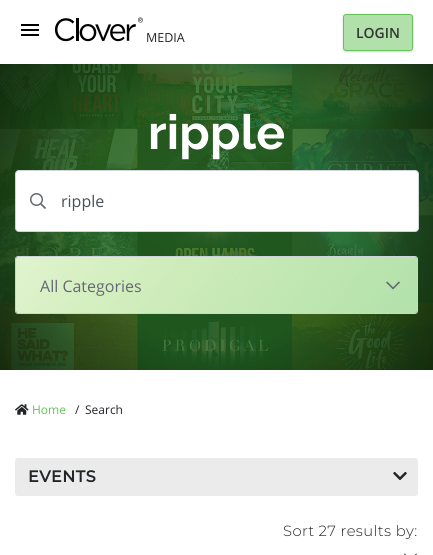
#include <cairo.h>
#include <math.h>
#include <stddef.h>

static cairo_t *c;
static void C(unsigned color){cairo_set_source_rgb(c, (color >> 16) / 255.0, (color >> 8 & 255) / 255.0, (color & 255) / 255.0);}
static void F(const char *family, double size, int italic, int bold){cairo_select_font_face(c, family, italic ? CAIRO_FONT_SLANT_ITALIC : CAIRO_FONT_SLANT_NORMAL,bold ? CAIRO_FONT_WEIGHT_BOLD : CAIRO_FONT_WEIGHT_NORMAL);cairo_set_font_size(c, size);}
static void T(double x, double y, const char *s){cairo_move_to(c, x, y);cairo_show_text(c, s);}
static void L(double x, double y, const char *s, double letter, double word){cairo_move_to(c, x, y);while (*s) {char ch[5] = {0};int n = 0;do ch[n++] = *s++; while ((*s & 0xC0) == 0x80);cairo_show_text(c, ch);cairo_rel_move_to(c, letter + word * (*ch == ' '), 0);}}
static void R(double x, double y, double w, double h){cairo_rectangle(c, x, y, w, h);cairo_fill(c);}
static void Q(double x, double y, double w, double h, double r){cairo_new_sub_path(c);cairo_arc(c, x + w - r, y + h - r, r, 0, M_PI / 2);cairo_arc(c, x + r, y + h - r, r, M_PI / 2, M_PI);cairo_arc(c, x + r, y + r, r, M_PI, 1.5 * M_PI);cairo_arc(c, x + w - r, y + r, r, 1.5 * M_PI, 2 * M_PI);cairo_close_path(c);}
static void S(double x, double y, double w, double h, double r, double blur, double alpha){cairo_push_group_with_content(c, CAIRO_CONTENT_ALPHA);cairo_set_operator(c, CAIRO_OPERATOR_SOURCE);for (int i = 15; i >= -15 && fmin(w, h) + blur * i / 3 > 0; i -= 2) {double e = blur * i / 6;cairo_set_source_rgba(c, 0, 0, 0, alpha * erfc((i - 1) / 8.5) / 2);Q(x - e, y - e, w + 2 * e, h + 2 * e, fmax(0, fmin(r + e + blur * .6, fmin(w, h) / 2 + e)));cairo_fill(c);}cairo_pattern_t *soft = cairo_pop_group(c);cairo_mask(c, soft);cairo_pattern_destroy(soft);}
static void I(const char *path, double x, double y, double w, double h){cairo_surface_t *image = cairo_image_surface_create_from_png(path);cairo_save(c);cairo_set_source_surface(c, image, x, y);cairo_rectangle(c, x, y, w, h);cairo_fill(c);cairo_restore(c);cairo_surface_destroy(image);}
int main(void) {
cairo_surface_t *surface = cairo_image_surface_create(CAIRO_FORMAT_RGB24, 433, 555);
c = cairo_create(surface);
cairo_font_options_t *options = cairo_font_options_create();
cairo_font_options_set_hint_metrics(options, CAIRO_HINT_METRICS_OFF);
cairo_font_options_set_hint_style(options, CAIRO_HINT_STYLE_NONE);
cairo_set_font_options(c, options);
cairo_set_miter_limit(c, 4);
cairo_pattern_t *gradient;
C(0xffffff);
cairo_paint(c);
I("1.png",21,24,18,12);
I("2.png",54,17,89,25);
F("Open Sans",12.5,0,0);
C(0x212529);
T(146,42,"MEDIA");
cairo_save(c);
cairo_set_fill_rule(c,CAIRO_FILL_RULE_EVEN_ODD);
cairo_new_path(c);
cairo_move_to(c,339,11);
cairo_line_to(c,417,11);
cairo_line_to(c,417,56);
cairo_line_to(c,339,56);
cairo_close_path(c);
cairo_move_to(c,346,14);
cairo_line_to(c,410,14);
cairo_curve_to(c,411.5,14,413,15.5,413,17);
cairo_line_to(c,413,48);
cairo_curve_to(c,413,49.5,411.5,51,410,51);
cairo_line_to(c,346,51);
cairo_curve_to(c,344.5,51,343,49.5,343,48);
cairo_line_to(c,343,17);
cairo_curve_to(c,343,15.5,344.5,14,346,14);
cairo_close_path(c);
cairo_clip(c);
C(0x000000);
S(343,15,70,37,3,1,.16);
cairo_restore(c);
cairo_set_source_rgba(c,0.392,0.765,0.345,0.5);
Q(343.5,14.5,69,36,2.5);
cairo_fill_preserve(c);
C(0x64c358);
cairo_set_line_width(c,1);
cairo_stroke(c);
F("Open Sans SemiBold",14,0,0);
C(0x343434);
T(356,38,"LOGIN");
I("3.png",0,64,433,306);
F("Raleway",48,0,1);
C(0xffffff);
L(148,149,"ripple",.25,0);
gradient = cairo_pattern_create_radial(217,217,0,217,217,398);
cairo_pattern_add_color_stop_rgba(gradient,.33,0,0,0,0);
cairo_pattern_add_color_stop_rgba(gradient,1,0,0,0,1);
cairo_set_source(c,gradient);
cairo_pattern_destroy(gradient);
R(0,64,433,306);
C(0xffffff);
Q(15.5,170.5,403,61,3.5);
cairo_fill_preserve(c);
C(0xced4da);
cairo_stroke(c);
I("4.png",30,193,16,16);
F("Open Sans",16,0,0);
C(0x495057);
T(61,207,"ripple");
C(0xffffff);
Q(16,257,401,56,2);
cairo_fill(c);
gradient = cairo_pattern_create_linear(75,178,358,392);
cairo_pattern_add_color_stop_rgba(gradient,0,0.392,0.765,0.031,.2);
cairo_pattern_add_color_stop_rgba(gradient,1,0.392,0.765,0.345,.5);
cairo_set_source(c,gradient);
cairo_pattern_destroy(gradient);
Q(16,257,401,56,2);
cairo_fill(c);
Q(15.5,256.5,402,57,2.5);
C(0xced4da);
cairo_stroke(c);
C(0x656874);
T(40,292,"All Categories");
I("5.png",386,281,14,9);
I("6.png",15,404,14,11);
F("Open Sans",12,0,0);
C(0x64c358);
T(32,414,"Home");
C(0x212529);
T(75,414,"/");
T(85,414,"Search");
C(0xebebeb);
Q(15,458,403,38,3);
cairo_fill(c);
F("Montserrat",16,0,1);
C(0x212529);
L(28,482,"EVENTS",.5,0);
I("7.png",393,471,14,10);
F("Montserrat Light",14.75,0,0);
L(283,536,"Sort 27 results by:",.4,0);
I("8.png",404,553,13,2);
cairo_surface_write_to_png(surface, "o.png");
cairo_font_options_destroy(options);
cairo_destroy(c);
cairo_surface_destroy(surface);
return 0;
}
